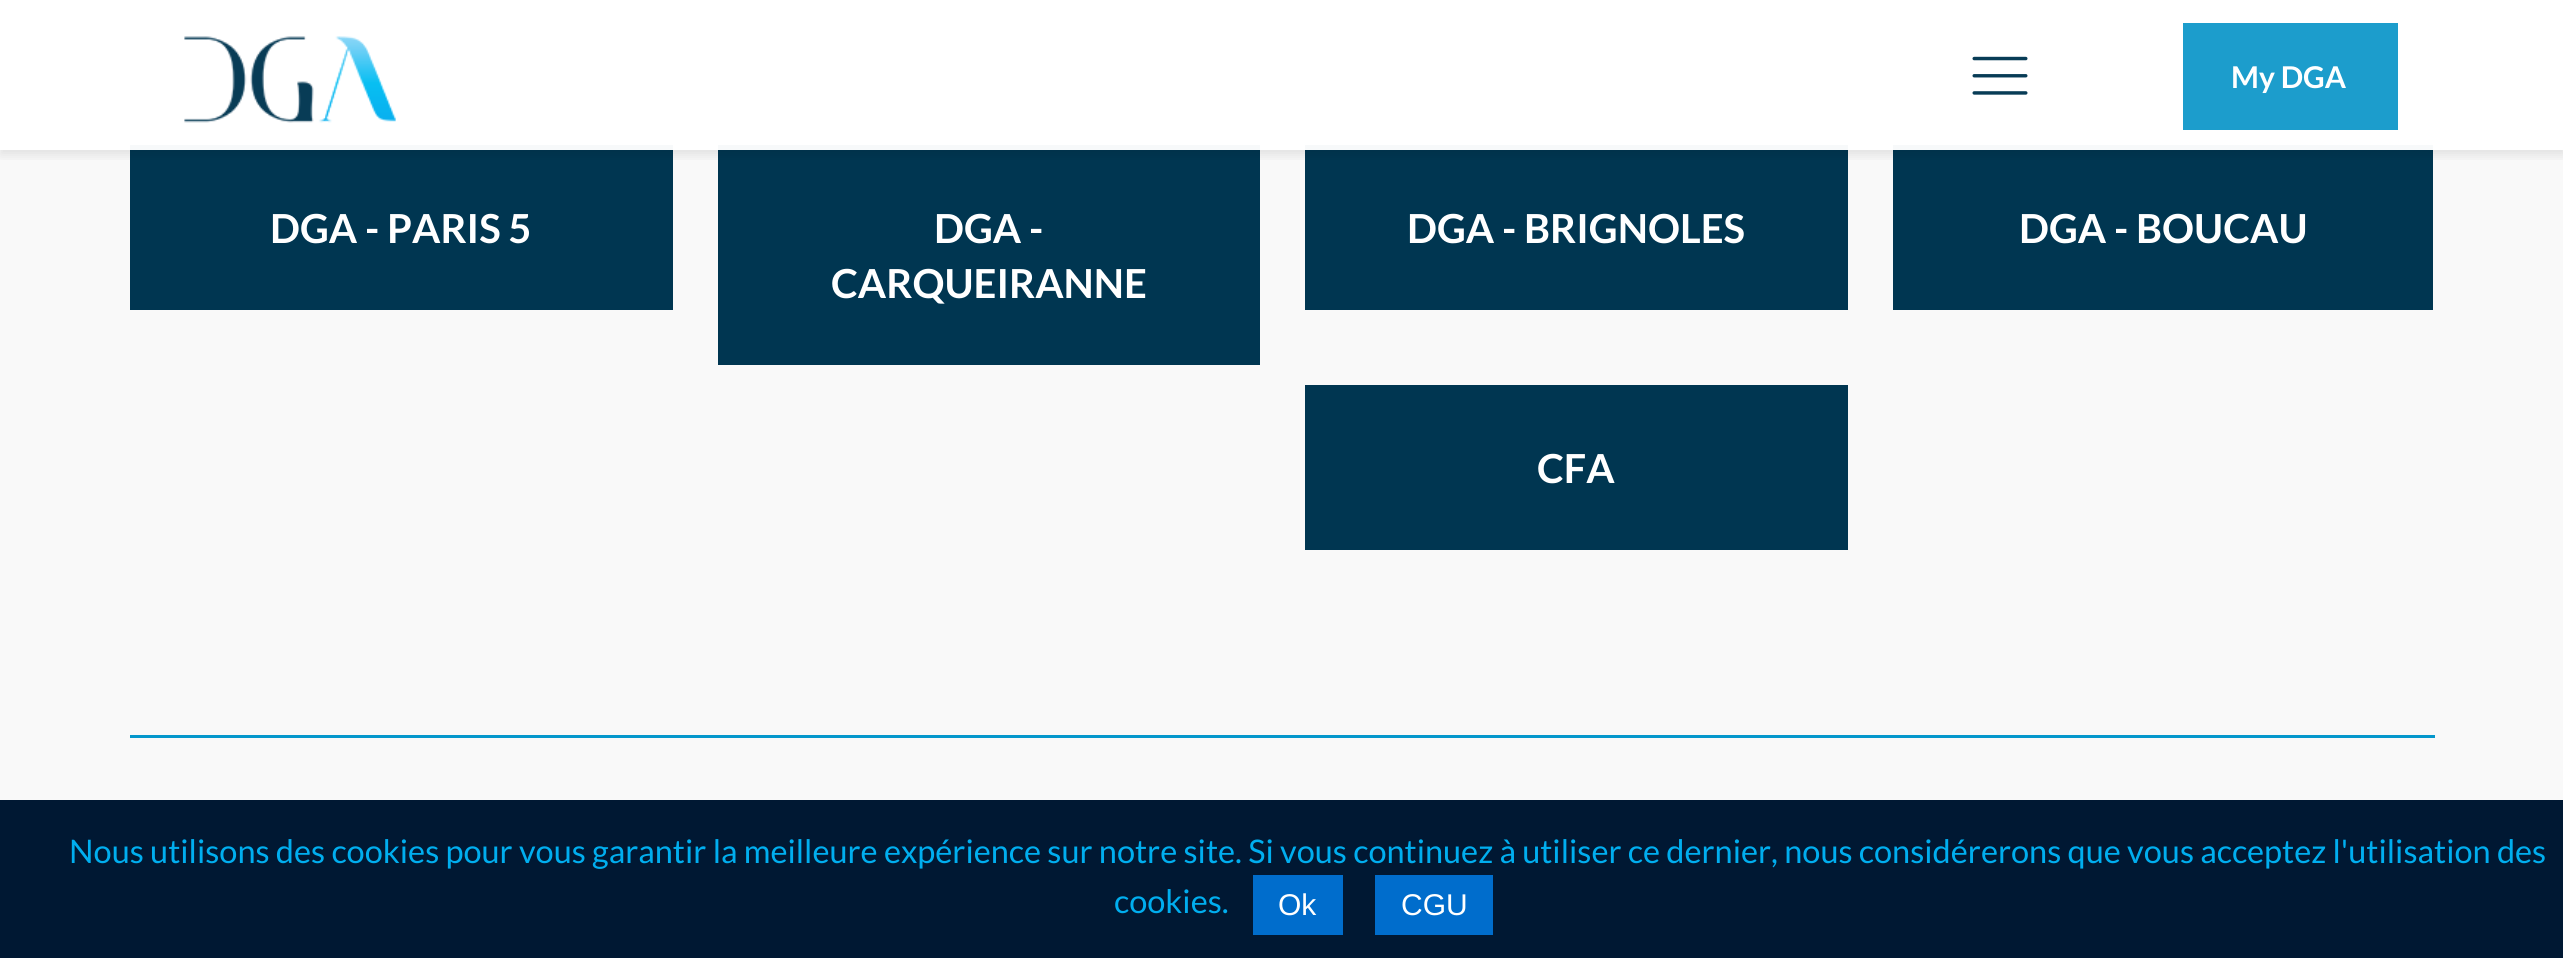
#include <cairo.h>
#include <math.h>
#include <stddef.h>

static cairo_t *c;
static void C(unsigned color){cairo_set_source_rgb(c, (color >> 16) / 255.0, (color >> 8 & 255) / 255.0, (color & 255) / 255.0);}
static void F(const char *family, double size, int italic, int bold){cairo_select_font_face(c, family, italic ? CAIRO_FONT_SLANT_ITALIC : CAIRO_FONT_SLANT_NORMAL,bold ? CAIRO_FONT_WEIGHT_BOLD : CAIRO_FONT_WEIGHT_NORMAL);cairo_set_font_size(c, size);}
static void T(double x, double y, const char *s){cairo_move_to(c, x, y);cairo_show_text(c, s);}
static void R(double x, double y, double w, double h){cairo_rectangle(c, x, y, w, h);cairo_fill(c);}
static void Q(double x, double y, double w, double h, double r){cairo_new_sub_path(c);cairo_arc(c, x + w - r, y + h - r, r, 0, M_PI / 2);cairo_arc(c, x + r, y + h - r, r, M_PI / 2, M_PI);cairo_arc(c, x + r, y + r, r, M_PI, 1.5 * M_PI);cairo_arc(c, x + w - r, y + r, r, 1.5 * M_PI, 2 * M_PI);cairo_close_path(c);}
static void S(double x, double y, double w, double h, double r, double blur, double alpha){cairo_push_group_with_content(c, CAIRO_CONTENT_ALPHA);cairo_set_operator(c, CAIRO_OPERATOR_SOURCE);for (int i = 15; i >= -15 && fmin(w, h) + blur * i / 3 > 0; i -= 2) {double e = blur * i / 6;cairo_set_source_rgba(c, 0, 0, 0, alpha * erfc((i - 1) / 8.5) / 2);Q(x - e, y - e, w + 2 * e, h + 2 * e, fmax(0, fmin(r + e + blur * .6, fmin(w, h) / 2 + e)));cairo_fill(c);}cairo_pattern_t *soft = cairo_pop_group(c);cairo_mask(c, soft);cairo_pattern_destroy(soft);}
static void I(const char *path, double x, double y, double w, double h){cairo_surface_t *image = cairo_image_surface_create_from_png(path);cairo_save(c);cairo_set_source_surface(c, image, x, y);cairo_rectangle(c, x, y, w, h);cairo_fill(c);cairo_restore(c);cairo_surface_destroy(image);}
int main(void) {
cairo_surface_t *surface = cairo_image_surface_create(CAIRO_FORMAT_RGB24, 2563, 958);
c = cairo_create(surface);
cairo_font_options_t *options = cairo_font_options_create();
cairo_font_options_set_hint_metrics(options, CAIRO_HINT_METRICS_OFF);
cairo_font_options_set_hint_style(options, CAIRO_HINT_STYLE_NONE);
cairo_set_font_options(c, options);
cairo_set_miter_limit(c, 4);
C(0xf9f9f9);
cairo_paint(c);
C(0xffffff);
R(0,0,2563,150);
C(0x003651);
R(130,150,543,160);
C(0xf7f9fa);
R(130,145,543,5);
C(0x003651);
R(718,150,542,215);
C(0xf7f9fa);
R(718,145,542,5);
C(0x003651);
R(1305,150,543,160);
C(0xf7f9fa);
R(1305,145,543,5);
C(0x003651);
R(1893,150,540,160);
C(0xf7f9fa);
R(1893,145,540,5);
cairo_save(c);
cairo_rectangle(c,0,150,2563,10);
cairo_clip(c);
C(0x000000);
S(0,5,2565,150,0,6,.1);
cairo_restore(c);
I("1.png",184,36,212,87);
I("2.png",1972,56,56,39);
C(0x1c9dcc);
R(2183,23,215,107);
F("Lato",30,0,1);
C(0xffffff);
T(2231,88,"My DGA");
F("Lato",40,0,1);
T(270,243,"DGA - PARIS 5");
T(934,243,"DGA -");
T(831,298,"CARQUEIRANNE");
T(1407,243,"DGA - BRIGNOLES");
T(2019,243,"DGA - BOUCAU");
C(0x003651);
R(1305,385,543,165);
C(0xffffff);
T(1537,483,"CFA");
C(0x0497cc);
R(130,735,2305,3);
C(0x001833);
R(0,800,2563,158);
F("Lato",32.5,0,0);
C(0x00aeef);
T(69,863,"Nous utilisons des cookies pour vous garantir la meilleure expérience sur notre site. Si vous continuez à utiliser ce dernier, nous considérerons que vous acceptez l'utilisation des");
T(1114,913,"cookies.");
C(0x006dcc);
R(1253,875,90,60);
F("Liberation Sans",30,0,0);
C(0xffffff);
T(1278,915,"Ok");
C(0x006dcc);
R(1375,875,118,60);
C(0xffffff);
T(1401,915,"CGU");
cairo_surface_write_to_png(surface, "o.png");
cairo_font_options_destroy(options);
cairo_destroy(c);
cairo_surface_destroy(surface);
return 0;
}
